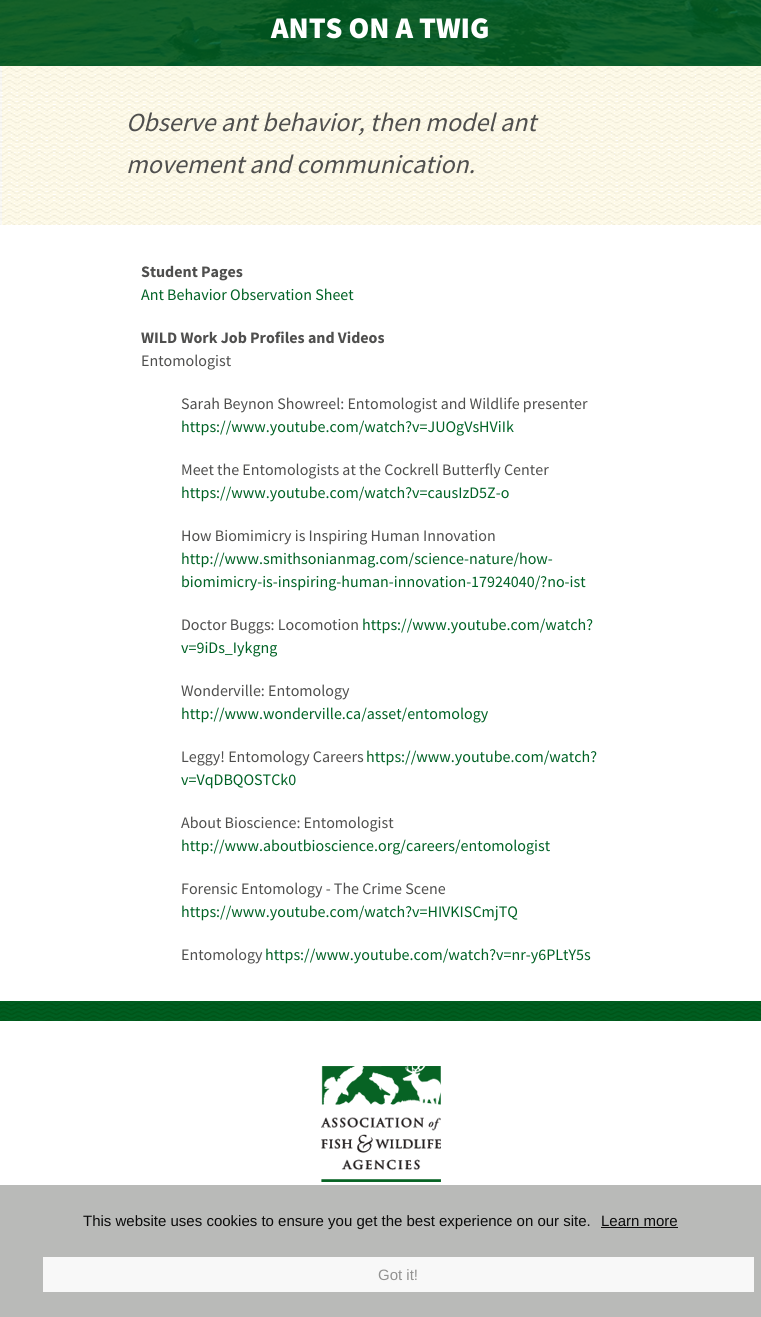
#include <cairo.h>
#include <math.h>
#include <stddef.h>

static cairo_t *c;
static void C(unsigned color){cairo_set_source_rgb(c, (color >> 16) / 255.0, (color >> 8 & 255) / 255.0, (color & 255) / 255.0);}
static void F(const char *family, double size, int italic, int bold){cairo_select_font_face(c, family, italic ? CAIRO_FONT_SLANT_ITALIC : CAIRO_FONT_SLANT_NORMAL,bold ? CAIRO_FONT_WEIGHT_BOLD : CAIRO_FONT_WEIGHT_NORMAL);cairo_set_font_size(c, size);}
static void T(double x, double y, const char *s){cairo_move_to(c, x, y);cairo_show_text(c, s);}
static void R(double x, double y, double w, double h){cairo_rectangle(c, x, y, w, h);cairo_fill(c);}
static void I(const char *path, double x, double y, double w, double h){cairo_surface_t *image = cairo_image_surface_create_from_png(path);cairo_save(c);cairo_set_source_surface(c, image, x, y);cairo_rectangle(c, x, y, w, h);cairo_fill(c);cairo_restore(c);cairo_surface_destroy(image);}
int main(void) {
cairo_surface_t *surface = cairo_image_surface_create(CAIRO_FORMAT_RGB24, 761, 1317);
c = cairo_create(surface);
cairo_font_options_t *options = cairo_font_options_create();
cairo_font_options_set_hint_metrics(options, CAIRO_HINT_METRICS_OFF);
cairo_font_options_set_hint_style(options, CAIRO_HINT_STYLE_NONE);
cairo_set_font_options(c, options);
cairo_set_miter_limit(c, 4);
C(0xffffff);
cairo_paint(c);
I("1.png",0,0,761,66);
F("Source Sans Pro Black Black",30,0,0);
C(0xffffff);
T(271,38,"ANTS ON A TWIG");
I("2.png",0,66,761,159);
F("Source Sans Pro",26,1,0);
C(0x4f4f4e);
T(126,131,"Observe ant behavior, then model ant");
T(126,173,"movement and communication.");
F("Source Sans Pro",16,0,1);
T(141,277,"Student Pages");
F("Source Sans Pro",16,0,0);
C(0x006225);
T(141,300,"Ant Behavior Observation Sheet");
F("Source Sans Pro",16,0,1);
C(0x4f4f4e);
T(141,343,"WILD Work Job Profiles and Videos");
F("Source Sans Pro",16,0,0);
T(141,366,"Entomologist");
T(181,409,"Sarah Beynon Showreel: Entomologist and Wildlife presenter");
C(0x006225);
T(181,432,"https://www.youtube.com/watch?v=JUOgVsHViIk");
C(0x4f4f4e);
T(181,475,"Meet the Entomologists at the Cockrell Butterfly Center");
C(0x006225);
T(181,498,"https://www.youtube.com/watch?v=causIzD5Z-o");
C(0x4f4f4e);
T(181,541,"How Biomimicry is Inspiring Human Innovation");
C(0x006225);
T(181,564,"http://www.smithsonianmag.com/science-nature/how-");
T(181,587,"biomimicry-is-inspiring-human-innovation-17924040/?no-ist");
C(0x4f4f4e);
T(181,630,"Doctor Buggs: Locomotion");
C(0x006225);
T(362,630,"https://www.youtube.com/watch?");
T(181,653,"v=9iDs_Iykgng");
C(0x4f4f4e);
T(181,696,"Wonderville: Entomology");
C(0x006225);
T(181,719,"http://www.wonderville.ca/asset/entomology");
C(0x4f4f4e);
T(181,762,"Leggy! Entomology Careers");
C(0x006225);
T(366,762,"https://www.youtube.com/watch?");
T(181,785,"v=VqDBQOSTCk0");
C(0x4f4f4e);
T(181,828,"About Bioscience: Entomologist");
C(0x006225);
T(181,851,"http://www.aboutbioscience.org/careers/entomologist");
C(0x4f4f4e);
T(181,894,"Forensic Entomology - The Crime Scene");
C(0x006225);
T(181,917,"https://www.youtube.com/watch?v=HIVKISCmjTQ");
C(0x4f4f4e);
T(181,960,"Entomology");
C(0x006225);
T(265,960,"https://www.youtube.com/watch?v=nr-y6PLtY5s");
I("3.png",0,1001,761,20);
I("4.png",321,1066,120,116);
C(0xb9bab8);
R(0,1185,761,132);
F("Liberation Sans",15,0,0);
C(0x0b0b0b);
T(83,1226,"This website uses cookies to ensure you get the best experience on our site.");
T(601,1226,"Learn more");
R(601,1227,77,1);
C(0xf8f8f8);
R(43,1257,711,35);
C(0x929291);
T(378,1280,"Got it!");
cairo_surface_write_to_png(surface, "o.png");
cairo_font_options_destroy(options);
cairo_destroy(c);
cairo_surface_destroy(surface);
return 0;
}
